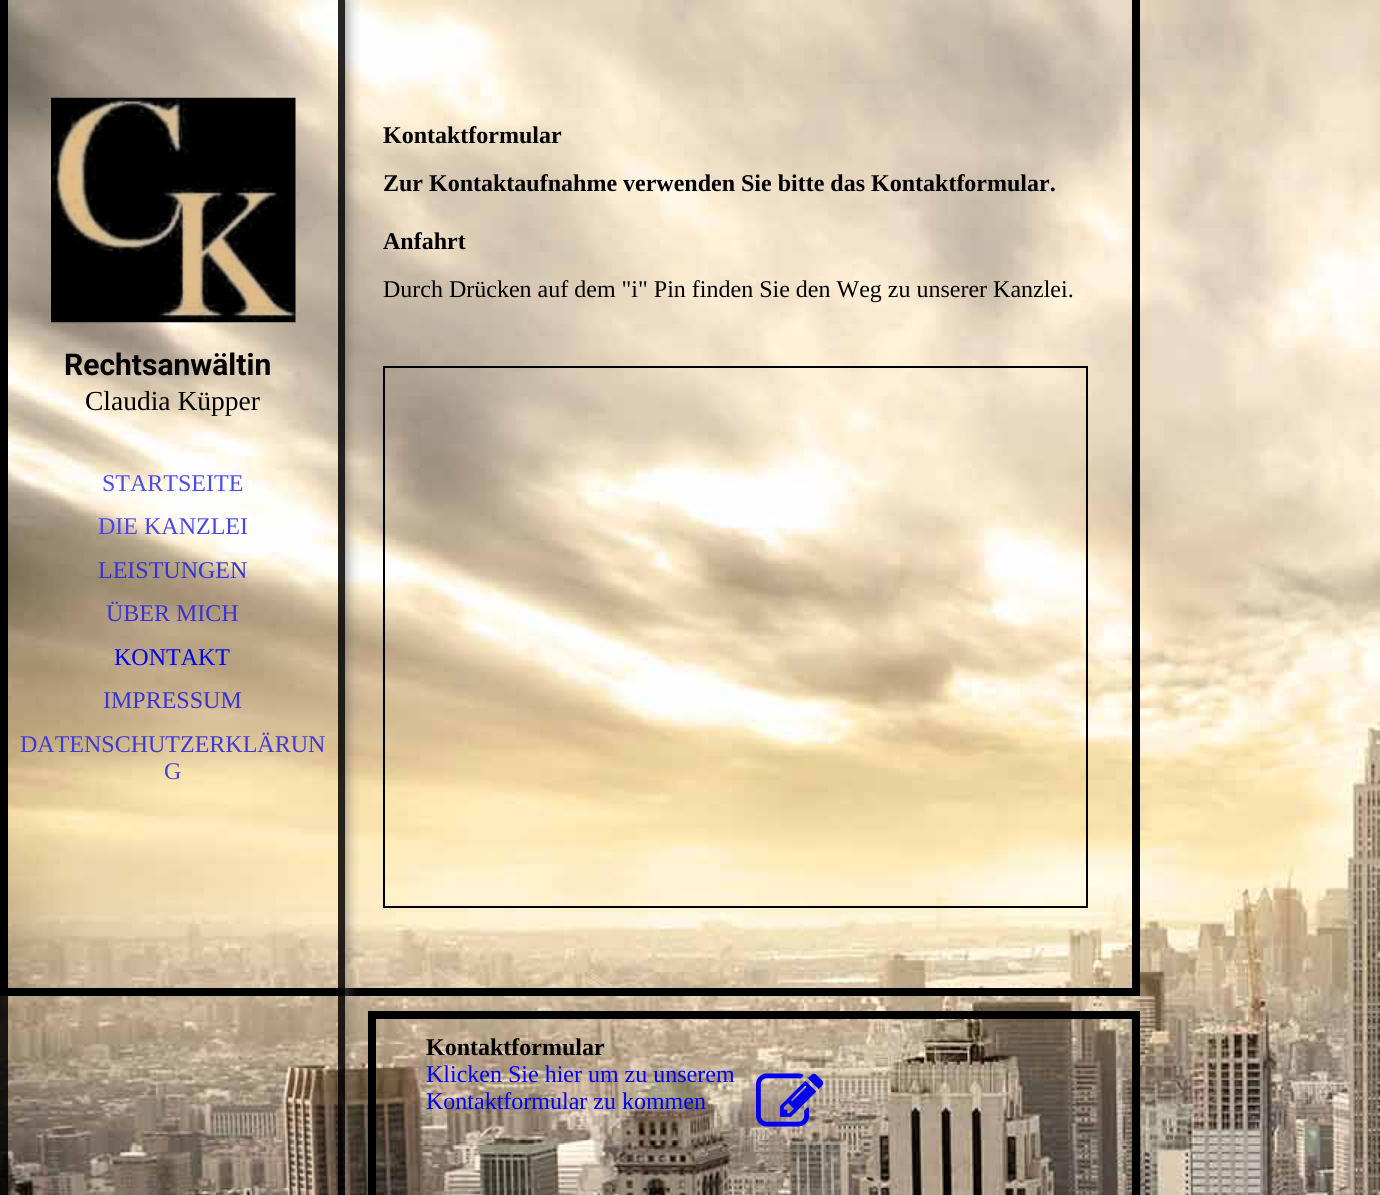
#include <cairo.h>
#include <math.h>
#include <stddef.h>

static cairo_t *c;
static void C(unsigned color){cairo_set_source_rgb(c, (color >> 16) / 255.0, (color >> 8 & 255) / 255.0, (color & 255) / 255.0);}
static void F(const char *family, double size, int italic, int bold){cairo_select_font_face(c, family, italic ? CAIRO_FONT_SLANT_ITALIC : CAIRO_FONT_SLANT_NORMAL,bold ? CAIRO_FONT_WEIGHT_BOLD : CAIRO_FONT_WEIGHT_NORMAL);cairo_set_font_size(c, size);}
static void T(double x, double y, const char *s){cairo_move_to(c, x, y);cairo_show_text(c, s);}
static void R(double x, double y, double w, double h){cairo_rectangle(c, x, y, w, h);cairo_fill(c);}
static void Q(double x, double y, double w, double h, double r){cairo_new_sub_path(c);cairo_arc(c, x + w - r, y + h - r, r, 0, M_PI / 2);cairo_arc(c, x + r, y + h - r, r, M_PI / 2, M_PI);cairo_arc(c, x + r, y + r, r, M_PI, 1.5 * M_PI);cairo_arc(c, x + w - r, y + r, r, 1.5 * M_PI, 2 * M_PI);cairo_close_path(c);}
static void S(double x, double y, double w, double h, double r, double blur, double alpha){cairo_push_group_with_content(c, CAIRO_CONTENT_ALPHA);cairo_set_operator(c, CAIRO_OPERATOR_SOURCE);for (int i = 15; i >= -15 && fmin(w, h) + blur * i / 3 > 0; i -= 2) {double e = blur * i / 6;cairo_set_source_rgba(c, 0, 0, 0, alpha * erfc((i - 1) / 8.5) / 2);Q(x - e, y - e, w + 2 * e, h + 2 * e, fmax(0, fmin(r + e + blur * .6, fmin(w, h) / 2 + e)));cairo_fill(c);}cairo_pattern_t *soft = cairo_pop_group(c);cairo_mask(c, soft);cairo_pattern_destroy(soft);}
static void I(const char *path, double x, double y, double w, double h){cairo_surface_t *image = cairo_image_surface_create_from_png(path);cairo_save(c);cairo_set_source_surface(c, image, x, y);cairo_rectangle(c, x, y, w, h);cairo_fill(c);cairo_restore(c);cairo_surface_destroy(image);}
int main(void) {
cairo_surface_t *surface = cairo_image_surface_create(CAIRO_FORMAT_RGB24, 1380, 1195);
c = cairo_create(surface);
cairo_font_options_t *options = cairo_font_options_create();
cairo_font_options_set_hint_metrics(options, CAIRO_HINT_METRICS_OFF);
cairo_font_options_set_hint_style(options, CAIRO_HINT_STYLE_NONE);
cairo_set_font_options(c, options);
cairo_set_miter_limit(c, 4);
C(0xffffff);
cairo_paint(c);
I("1.png",0,0,1380,1195);
cairo_rectangle(c,4,-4,1132,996);
C(0x000000);
cairo_set_line_width(c,8);
cairo_stroke(c);
cairo_rectangle(c,372,1015,764,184);
cairo_stroke(c);
cairo_save(c);
cairo_rectangle(c,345,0,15,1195);
cairo_clip(c);
C(0x666666);
S(0,0,345,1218,0,7.5,.85);
cairo_restore(c);
cairo_set_source_rgba(c,0,0,0,0.85);
R(338,0,7,1195);
R(0,996,8,199);
F("Liberation Serif",24,0,1);
C(0x000000);
T(383,143,"Kontaktformular");
T(383,191,"Zur Kontaktaufnahme verwenden Sie bitte das Kontaktformular.");
T(383,249,"Anfahrt");
F("Liberation Serif",24,0,0);
T(383,297,"Durch Drücken auf dem \"i\" Pin finden Sie den Weg zu unserer Kanzlei.");
cairo_rectangle(c,384,367,703,540);
cairo_set_line_width(c,2);
cairo_stroke(c);
I("2.png",51,97,245,226);
F("Roboto",30,0,1);
T(64,375,"Rechtsanwältin");
F("Liberation Serif",27.5,0,0);
T(85,410,"Claudia Küpper");
F("Liberation Serif",24,0,0);
C(0x4c4bee);
T(102,491,"STARTSEITE");
C(0x4846e8);
T(98,534,"DIE KANZLEI");
C(0x3833d1);
T(98,578,"LEISTUNGEN");
T(106,621,"ÜBER MICH");
C(0x0000ee);
T(114,665,"KONTAKT");
C(0x3833d1);
T(103,708,"IMPRESSUM");
C(0x4039d2);
T(20,752,"DATENSCHUTZERKLÄRUN");
C(0x4942d9);
T(164,779,"G");
F("Liberation Serif",24,0,1);
C(0x000000);
T(426,1055,"Kontaktformular");
F("Liberation Serif",24,0,0);
C(0x0000ee);
T(426,1082,"Klicken Sie hier um zu unserem");
T(426,1109,"Kontaktformular zu kommen");
I("3.png",756,1073,68,54);
cairo_surface_write_to_png(surface, "o.png");
cairo_font_options_destroy(options);
cairo_destroy(c);
cairo_surface_destroy(surface);
return 0;
}
